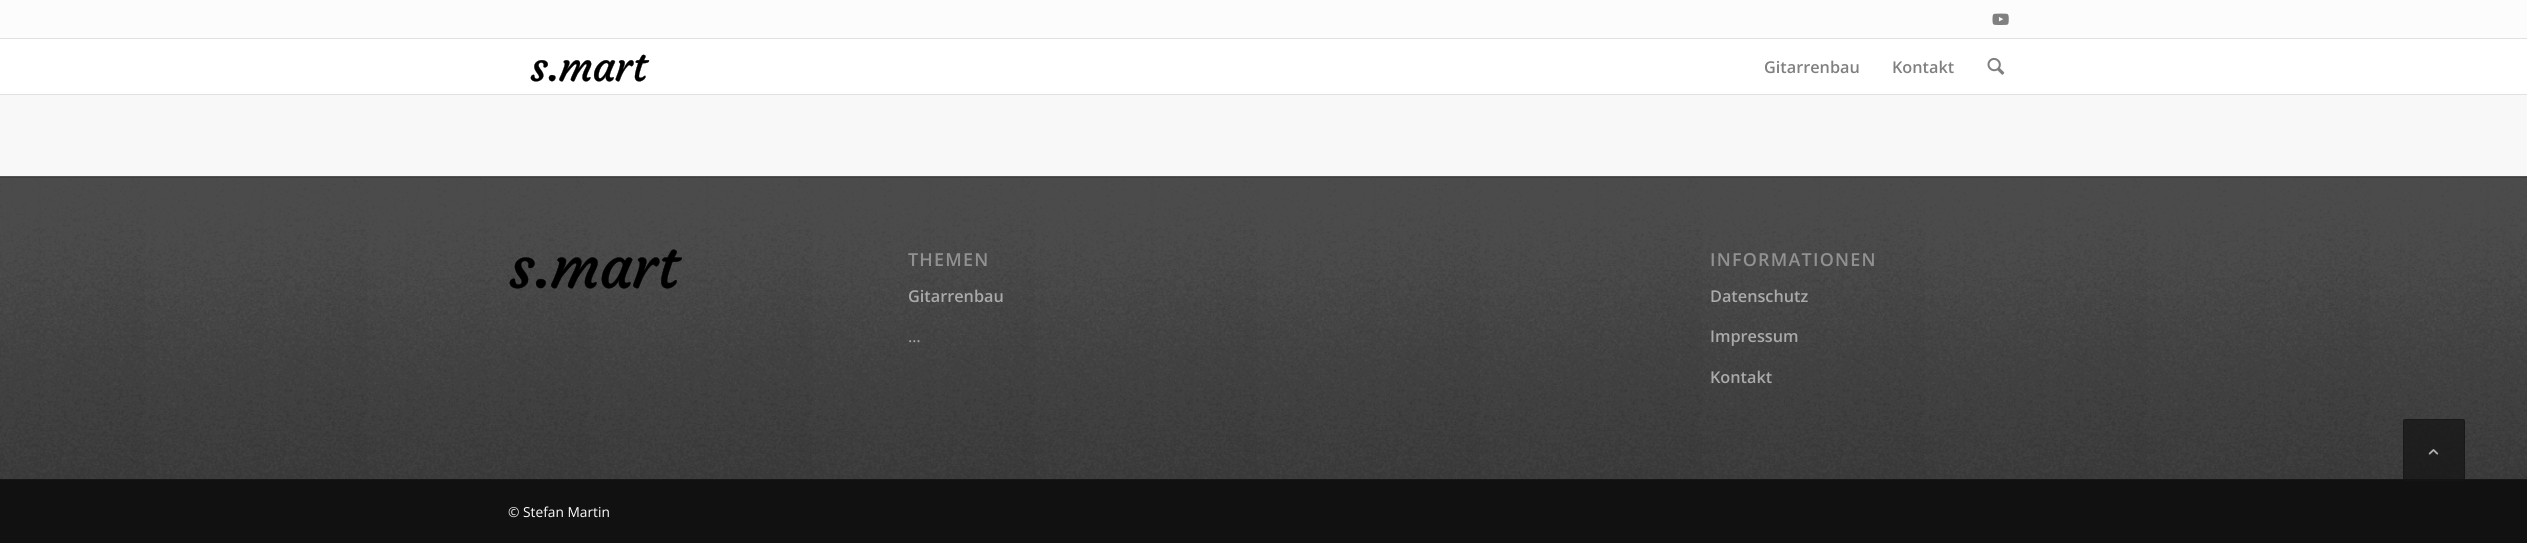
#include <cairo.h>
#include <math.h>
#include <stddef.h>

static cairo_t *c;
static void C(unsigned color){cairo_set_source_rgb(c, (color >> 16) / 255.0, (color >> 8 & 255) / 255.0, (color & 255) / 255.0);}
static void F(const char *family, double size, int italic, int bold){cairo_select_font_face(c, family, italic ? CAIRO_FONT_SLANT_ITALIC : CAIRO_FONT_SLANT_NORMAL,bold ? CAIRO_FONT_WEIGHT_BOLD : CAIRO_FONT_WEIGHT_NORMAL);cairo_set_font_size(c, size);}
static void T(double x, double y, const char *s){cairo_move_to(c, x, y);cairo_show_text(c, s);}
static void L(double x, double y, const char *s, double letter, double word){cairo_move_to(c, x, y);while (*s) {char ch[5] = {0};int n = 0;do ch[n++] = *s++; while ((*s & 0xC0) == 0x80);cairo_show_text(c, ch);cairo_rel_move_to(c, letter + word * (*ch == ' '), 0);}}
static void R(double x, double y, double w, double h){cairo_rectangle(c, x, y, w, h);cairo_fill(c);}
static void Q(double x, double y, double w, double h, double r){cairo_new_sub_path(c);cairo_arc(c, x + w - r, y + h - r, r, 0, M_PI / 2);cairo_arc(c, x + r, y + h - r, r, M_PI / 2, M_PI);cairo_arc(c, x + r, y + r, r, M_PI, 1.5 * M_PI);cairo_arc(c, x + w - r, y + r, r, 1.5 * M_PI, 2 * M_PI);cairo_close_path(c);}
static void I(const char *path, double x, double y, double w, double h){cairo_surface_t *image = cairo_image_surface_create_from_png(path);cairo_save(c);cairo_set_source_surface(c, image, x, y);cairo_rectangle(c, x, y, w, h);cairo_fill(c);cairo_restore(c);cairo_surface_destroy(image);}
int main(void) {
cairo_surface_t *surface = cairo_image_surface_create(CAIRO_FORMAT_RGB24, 2527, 543);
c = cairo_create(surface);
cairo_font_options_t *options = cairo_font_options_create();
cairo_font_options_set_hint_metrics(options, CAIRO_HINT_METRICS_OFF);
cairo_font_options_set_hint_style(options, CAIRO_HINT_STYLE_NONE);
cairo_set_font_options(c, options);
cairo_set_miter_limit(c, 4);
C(0xf8f8f8);
cairo_paint(c);
C(0xfcfcfc);
R(0,0,2527,38);
C(0xe1e1e1);
R(0,38,2527,1);
I("1.png",1992,13,17,12);
cairo_set_source_rgba(c,1,1,1,0.95);
R(0,39,2527,55);
C(0xe1e1e1);
R(0,94,2527,1);
I("2.png",530,54,120,28);
F("Open Sans SemiBold",16.25,0,0);
C(0x808080);
T(1764,73,"Gitarrenbau");
T(1892,73,"Kontakt");
I("3.png",1987,57,18,18);
C(0x333333);
R(0,177,2527,302);
I("4.png",0,177,2527,302);
C(0x555555);
R(0,176,2527,1);
I("5.png",509,249,173,40);
F("Open Sans SemiBold",17.9,0,0);
C(0x919191);
L(908,266,"THEMEN",1.25,0);
F("Open Sans SemiBold",16.25,0,0);
C(0xaaaaaa);
T(908,302,"Gitarrenbau");
F("Open Sans",16.25,0,0);
T(908,342,"…");
F("Open Sans SemiBold",17.9,0,0);
C(0x919191);
L(1710,266,"INFORMATIONEN",1.25,0);
F("Open Sans SemiBold",16.25,0,0);
C(0xaaaaaa);
T(1710,302,"Datenschutz");
T(1710,342,"Impressum");
T(1710,383,"Kontakt");
C(0x111111);
R(0,480,2527,63);
C(0x161616);
R(0,479,2527,1);
F("Open Sans",13.75,0,0);
C(0xeeeeee);
T(508,517,"©");
C(0xffffff);
T(523,517,"Stefan Martin");
cairo_set_source_rgba(c,0.067,0.067,0.067,0.7);
Q(2403,419,62,62,2.5);
cairo_fill(c);
Q(2403.5,419.5,61,61,2);
cairo_set_source_rgba(c,0.086,0.086,0.086,0.7);
cairo_set_line_width(c,1);
cairo_stroke(c);
I("6.png",2428,449,11,6);
cairo_surface_write_to_png(surface, "o.png");
cairo_font_options_destroy(options);
cairo_destroy(c);
cairo_surface_destroy(surface);
return 0;
}
